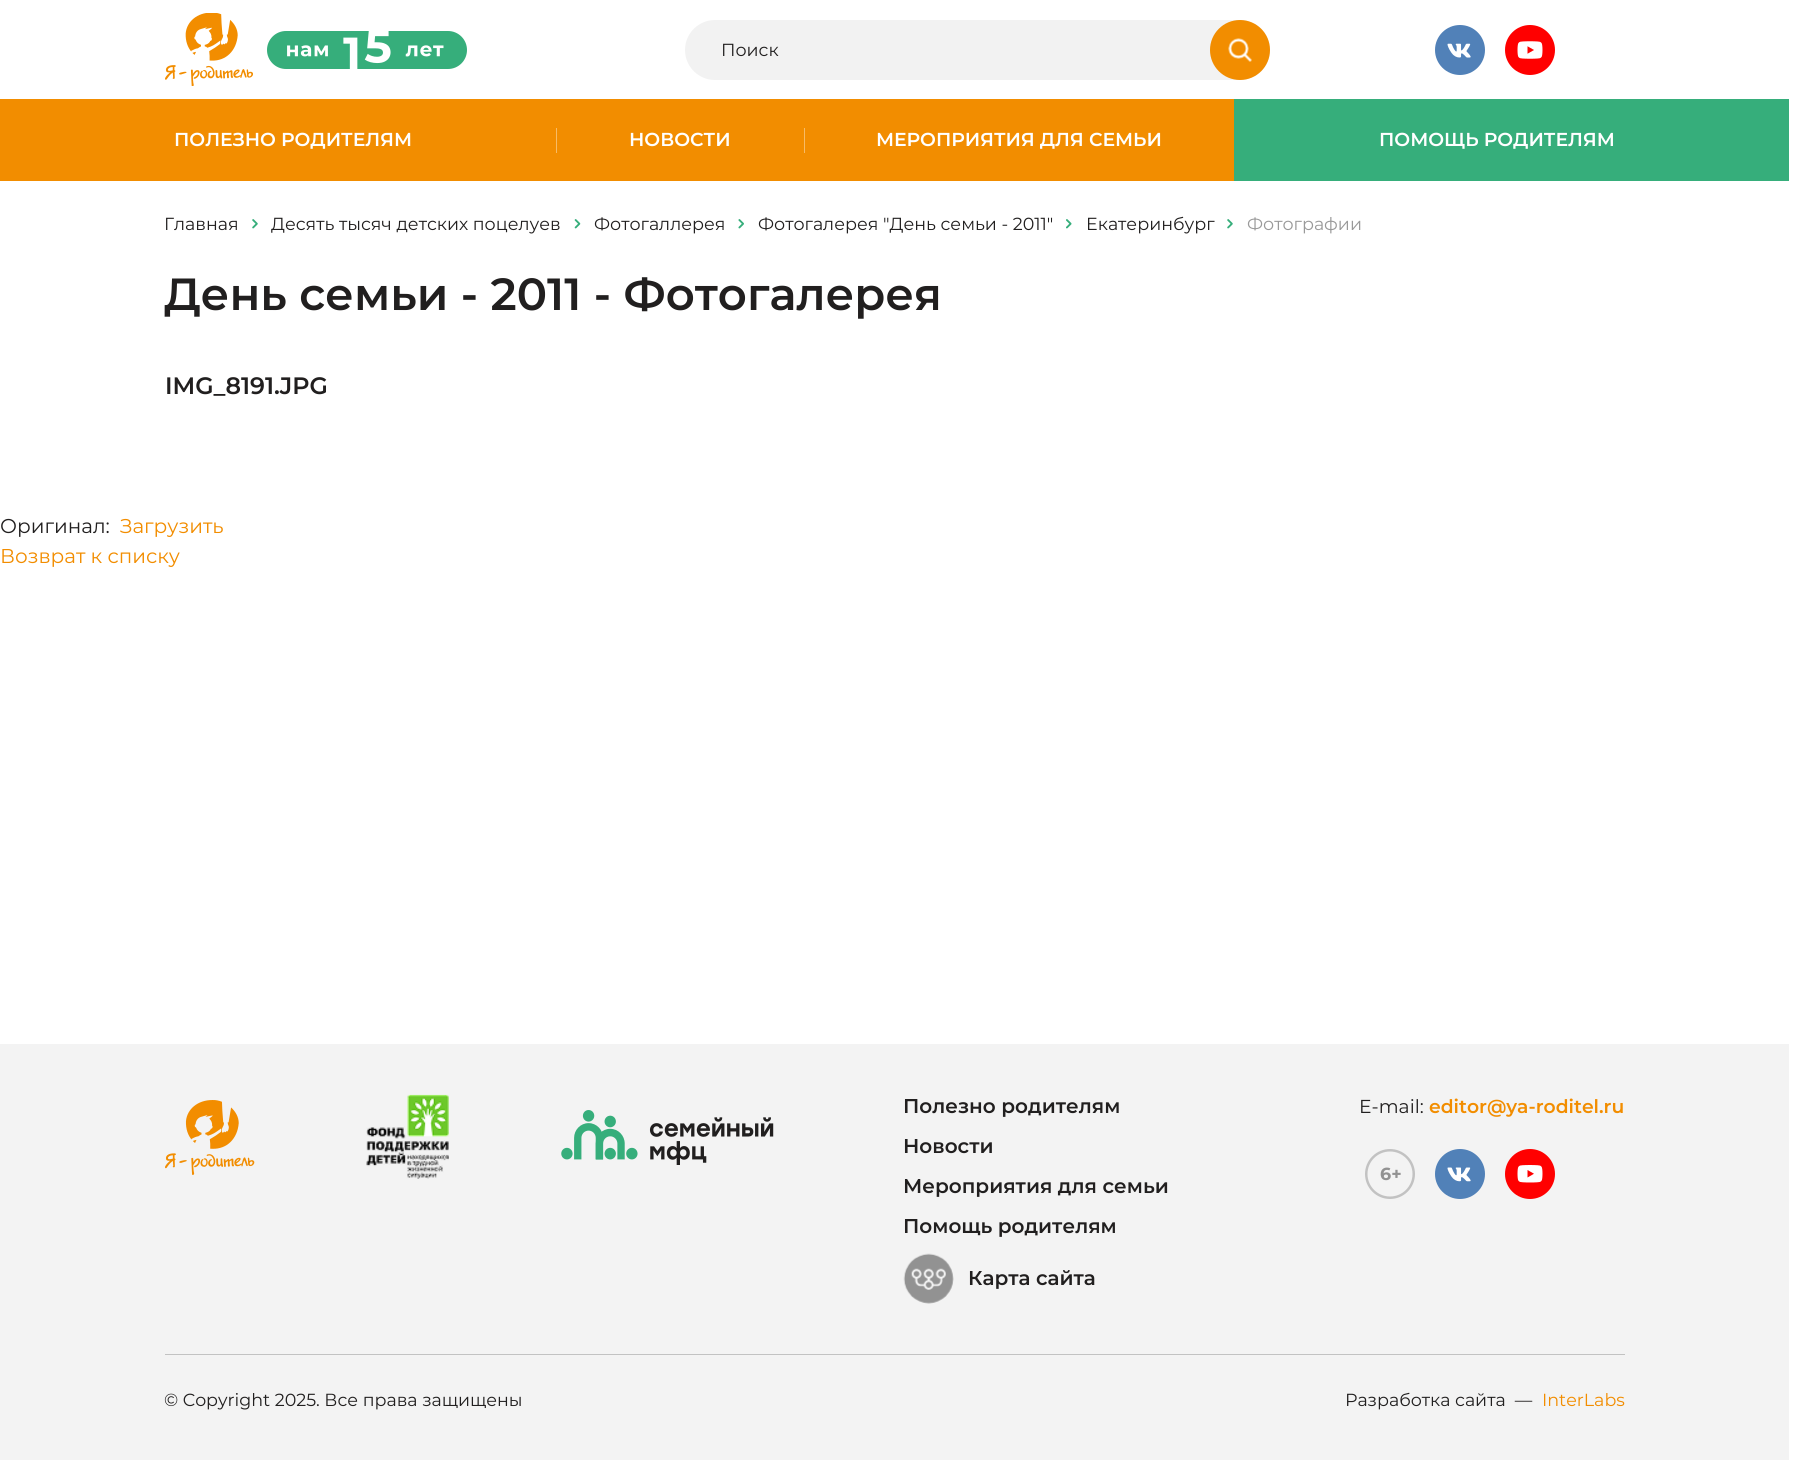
#include <cairo.h>
#include <math.h>
#include <stddef.h>

static cairo_t *c;
static void C(unsigned color){cairo_set_source_rgb(c, (color >> 16) / 255.0, (color >> 8 & 255) / 255.0, (color & 255) / 255.0);}
static void F(const char *family, double size, int italic, int bold){cairo_select_font_face(c, family, italic ? CAIRO_FONT_SLANT_ITALIC : CAIRO_FONT_SLANT_NORMAL,bold ? CAIRO_FONT_WEIGHT_BOLD : CAIRO_FONT_WEIGHT_NORMAL);cairo_set_font_size(c, size);}
static void T(double x, double y, const char *s){cairo_move_to(c, x, y);cairo_show_text(c, s);}
static void R(double x, double y, double w, double h){cairo_rectangle(c, x, y, w, h);cairo_fill(c);}
static void Q(double x, double y, double w, double h, double r){cairo_new_sub_path(c);cairo_arc(c, x + w - r, y + h - r, r, 0, M_PI / 2);cairo_arc(c, x + r, y + h - r, r, M_PI / 2, M_PI);cairo_arc(c, x + r, y + r, r, M_PI, 1.5 * M_PI);cairo_arc(c, x + w - r, y + r, r, 1.5 * M_PI, 2 * M_PI);cairo_close_path(c);}
static void I(const char *path, double x, double y, double w, double h){cairo_surface_t *image = cairo_image_surface_create_from_png(path);cairo_save(c);cairo_set_source_surface(c, image, x, y);cairo_rectangle(c, x, y, w, h);cairo_fill(c);cairo_restore(c);cairo_surface_destroy(image);}
int main(void) {
cairo_surface_t *surface = cairo_image_surface_create(CAIRO_FORMAT_RGB24, 1807, 1460);
c = cairo_create(surface);
cairo_font_options_t *options = cairo_font_options_create();
cairo_font_options_set_hint_metrics(options, CAIRO_HINT_METRICS_OFF);
cairo_font_options_set_hint_style(options, CAIRO_HINT_STYLE_NONE);
cairo_set_font_options(c, options);
cairo_set_miter_limit(c, 4);
C(0xffffff);
cairo_paint(c);
I("1.png",165,13,88,73);
I("2.png",267,31,200,38);
C(0xf2f2f2);
Q(685,20,585,60,30);
cairo_fill(c);
F("Montserrat",17.5,0,0);
C(0x211f1f);
T(721,56,"Поиск");
C(0xf28d00);
cairo_new_path(c);
cairo_arc(c,1240,50,30,0,2 * M_PI);
cairo_fill(c);
I("3.png",1228,38,24,24);
I("4.png",1435,25,50,50);
I("5.png",1505,25,50,50);
R(0,99,1234,82);
F("Montserrat SemiBold",18.75,0,0);
C(0xffffff);
T(174,146,"ПОЛЕЗНО РОДИТЕЛЯМ");
C(0xf7bb66);
R(556,128,1,25);
C(0xffffff);
T(629,146,"НОВОСТИ");
C(0xf7bb66);
R(804,128,1,25);
C(0xffffff);
T(876,146,"МЕРОПРИЯТИЯ ДЛЯ СЕМЬИ");
C(0x36ae7b);
R(1234,99,555,82);
C(0xffffff);
T(1379,146,"ПОМОЩЬ РОДИТЕЛЯМ");
F("Montserrat",17.5,0,0);
C(0x211f1f);
T(164,230,"Главная");
I("6.png",252,219,6,10);
T(271,230,"Десять тысяч детских поцелуев");
I("7.png",574,219,7,10);
T(594,230,"Фотогаллерея");
I("8.png",738,219,6,10);
T(758,230,"Фотогалерея \"День семьи - 2011\"");
I("9.png",1066,219,6,10);
T(1086,230,"Eкатеринбург");
I("6.png",1227,219,6,10);
C(0x999999);
T(1247,230,"Фотографии");
F("Montserrat SemiBold",45,0,0);
C(0x211f1f);
T(164,310,"День семьи - 2011 - Фотогалерея");
F("Montserrat SemiBold",23.75,0,0);
T(165,394,"IMG_8191.JPG");
F("Montserrat",20,0,0);
T(0,533,"Оригинал:");
C(0xf28d00);
T(120,533,"Загрузить");
T(0,563,"Возврат к списку");
C(0xf3f3f3);
R(0,1044,1789,416);
I("10.png",165,1100,90,75);
I("11.png",366,1094,83,85);
I("12.png",561,1110,213,55);
F("Montserrat SemiBold",20,0,0);
C(0x211f1f);
T(903,1113,"Полезно родителям");
T(903,1153,"Новости");
T(903,1193,"Мероприятия для семьи");
T(903,1233,"Помощь родителям");
I("13.png",903,1253,51,51);
T(968,1285,"Карта сайта");
F("Montserrat",18.75,0,0);
T(1359,1113,"E-mail:");
F("Montserrat SemiBold",18.75,0,0);
C(0xf28d00);
T(1429,1113,"editor@ya-roditel.ru");
I("14.png",1365,1149,50,50);
I("15.png",1435,1149,50,50);
I("16.png",1505,1149,50,50);
C(0xc2c2c2);
R(165,1354,1460,1);
F("Montserrat",17.5,0,0);
C(0x211f1f);
T(164,1406,"© Copyright 2025. Все права защищены");
T(1345,1406,"Разработка сайта  —");
C(0xf28d00);
T(1542,1406,"InterLabs");
cairo_surface_write_to_png(surface, "o.png");
cairo_font_options_destroy(options);
cairo_destroy(c);
cairo_surface_destroy(surface);
return 0;
}
